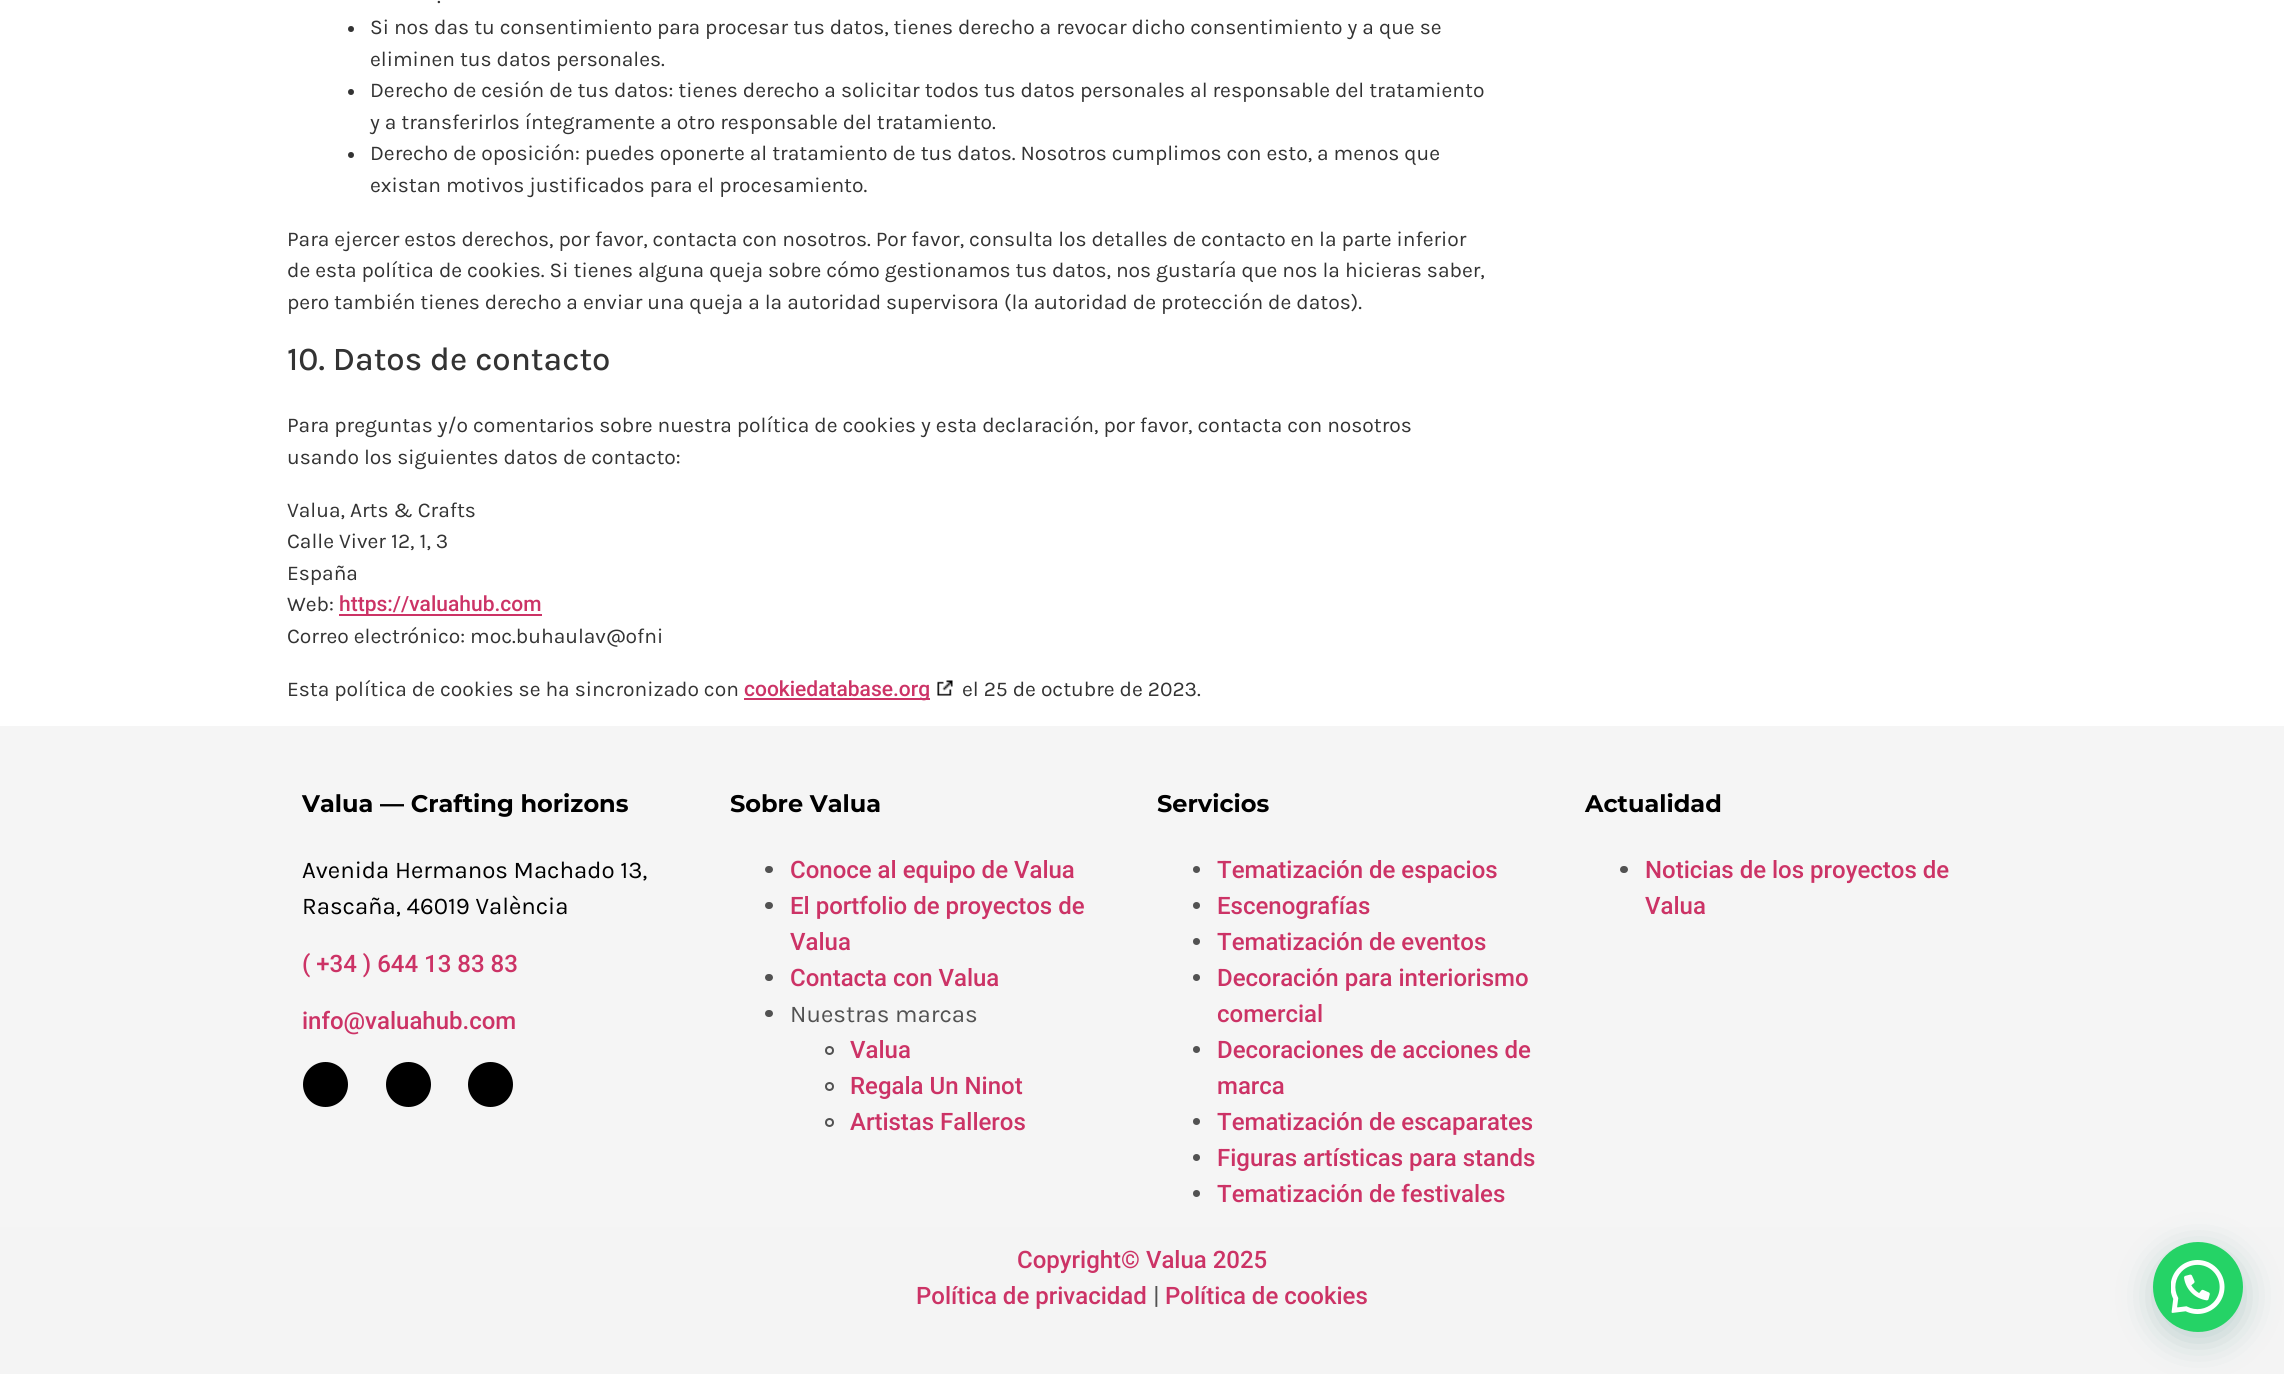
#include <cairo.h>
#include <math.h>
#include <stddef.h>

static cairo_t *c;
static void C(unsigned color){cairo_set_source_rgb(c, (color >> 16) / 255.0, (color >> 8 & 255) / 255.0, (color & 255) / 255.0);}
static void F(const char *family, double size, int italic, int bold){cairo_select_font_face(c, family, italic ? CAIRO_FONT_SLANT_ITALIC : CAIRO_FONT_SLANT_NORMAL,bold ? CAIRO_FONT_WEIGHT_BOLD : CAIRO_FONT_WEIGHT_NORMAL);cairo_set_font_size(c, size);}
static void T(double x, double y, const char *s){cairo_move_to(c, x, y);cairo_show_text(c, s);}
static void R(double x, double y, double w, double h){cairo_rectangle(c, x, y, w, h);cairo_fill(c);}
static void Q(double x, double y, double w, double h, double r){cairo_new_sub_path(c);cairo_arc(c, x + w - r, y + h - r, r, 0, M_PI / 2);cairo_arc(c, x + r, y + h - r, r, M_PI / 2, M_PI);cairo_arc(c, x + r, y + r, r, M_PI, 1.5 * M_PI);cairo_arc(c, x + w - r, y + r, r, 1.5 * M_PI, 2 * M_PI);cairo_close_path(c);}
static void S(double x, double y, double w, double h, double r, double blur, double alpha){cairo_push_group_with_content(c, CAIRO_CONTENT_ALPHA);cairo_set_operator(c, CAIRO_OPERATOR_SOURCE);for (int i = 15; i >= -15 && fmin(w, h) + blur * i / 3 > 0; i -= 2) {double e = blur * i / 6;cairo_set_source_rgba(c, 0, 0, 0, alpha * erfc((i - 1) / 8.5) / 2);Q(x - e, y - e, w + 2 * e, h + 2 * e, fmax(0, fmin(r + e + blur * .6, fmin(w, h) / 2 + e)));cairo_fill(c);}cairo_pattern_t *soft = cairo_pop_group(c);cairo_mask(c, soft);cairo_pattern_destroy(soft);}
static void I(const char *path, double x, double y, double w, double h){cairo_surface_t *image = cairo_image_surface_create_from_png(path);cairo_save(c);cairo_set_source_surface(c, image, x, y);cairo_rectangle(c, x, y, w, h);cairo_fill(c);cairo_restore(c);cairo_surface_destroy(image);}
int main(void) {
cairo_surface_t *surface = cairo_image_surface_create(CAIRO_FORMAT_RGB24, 2284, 1374);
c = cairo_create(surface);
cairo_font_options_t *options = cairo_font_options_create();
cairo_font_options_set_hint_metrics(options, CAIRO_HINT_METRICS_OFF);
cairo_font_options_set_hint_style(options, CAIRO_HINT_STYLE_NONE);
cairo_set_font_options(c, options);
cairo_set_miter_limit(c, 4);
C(0xffffff);
cairo_paint(c);
F("Karla",21,0,0);
C(0x333333);
T(437,3,".");
cairo_new_path(c);
cairo_arc(c,351,29,3,0,2 * M_PI);
cairo_fill(c);
T(370,34,"Si nos das tu consentimiento para procesar tus datos, tienes derecho a revocar dicho consentimiento y a que se");
T(370,66,"eliminen tus datos personales.");
cairo_new_path(c);
cairo_arc(c,351,92,3,0,2 * M_PI);
cairo_fill(c);
T(370,97,"Derecho de cesión de tus datos: tienes derecho a solicitar todos tus datos personales al responsable del tratamiento");
T(370,129,"y a transferirlos íntegramente a otro responsable del tratamiento.");
cairo_new_path(c);
cairo_arc(c,351,155,3,0,2 * M_PI);
cairo_fill(c);
T(370,160,"Derecho de oposición: puedes oponerte al tratamiento de tus datos. Nosotros cumplimos con esto, a menos que");
T(370,192,"existan motivos justificados para el procesamiento.");
T(287,246,"Para ejercer estos derechos, por favor, contacta con nosotros. Por favor, consulta los detalles de contacto en la parte inferior");
T(287,277,"de esta política de cookies. Si tienes alguna queja sobre cómo gestionamos tus datos, nos gustaría que nos la hicieras saber,");
T(287,309,"pero también tienes derecho a enviar una queja a la autoridad supervisora (la autoridad de protección de datos).");
F("Karla Medium",33,0,0);
T(287,370,"10. Datos de contacto");
F("Karla",21,0,0);
T(287,432,"Para preguntas y/o comentarios sobre nuestra política de cookies y esta declaración, por favor, contacta con nosotros");
T(287,464,"usando los siguientes datos de contacto:");
T(287,517,"Valua, Arts & Crafts");
T(287,548,"Calle Viver 12, 1, 3");
T(287,580,"España");
T(287,611,"Web:");
C(0xcc3366);
R(339,614,203,2);
F("Roboto Medium",21,0,0);
T(339,611,"https://valuahub.com");
F("Karla",21,0,0);
C(0x333333);
T(287,643,"Correo electrónico: moc.buhaulav@ofni");
T(287,696,"Esta política de cookies se ha sincronizado con");
C(0xcc3366);
R(744,698,186,2);
F("Roboto Medium",21,0,0);
T(744,696,"cookiedatabase.org");
I("1.png",937,680,16,16);
F("Karla",21,0,0);
C(0x333333);
T(962,696,"el 25 de octubre de 2023.");
C(0xf5f5f5);
R(0,726,2284,501);
F("Montserrat",24,0,1);
C(0x000000);
T(302,812,"Valua — Crafting horizons");
F("Karla",24,0,0);
T(302,878,"Avenida Hermanos Machado 13,");
T(302,914,"Rascaña, 46019 València");
F("Roboto Medium",24,0,0);
C(0xcc3366);
T(302,972,"( +34 ) 644 13 83 83");
T(302,1029,"info@valuahub.com");
C(0x000000);
cairo_new_path(c);
cairo_arc(c,325.5,1084.5,22.5,0,2 * M_PI);
cairo_fill(c);
cairo_arc(c,408.5,1084.5,22.5,0,2 * M_PI);
cairo_fill(c);
cairo_arc(c,490.5,1084.5,22.5,0,2 * M_PI);
cairo_fill(c);
F("Montserrat",24,0,1);
T(730,812,"Sobre Valua");
C(0x525252);
Q(765,866,8,7,3.5);
cairo_fill(c);
F("Roboto Medium",24,0,0);
C(0xcc3366);
T(790,878,"Conoce al equipo de Valua");
C(0x525252);
Q(765,902,8,7,3.5);
cairo_fill(c);
C(0xcc3366);
T(790,914,"El portfolio de proyectos de");
T(790,950,"Valua");
C(0x525252);
Q(765,974,8,7,3.5);
cairo_fill(c);
C(0xcc3366);
T(790,986,"Contacta con Valua");
C(0x525252);
Q(765,1010,8,7,3.5);
cairo_fill(c);
F("Karla",24,0,0);
T(790,1022,"Nuestras marcas");
cairo_new_path(c);
cairo_arc(c,829.5,1050.5,3.5,0,2 * M_PI);
cairo_stroke(c);
F("Roboto Medium",24,0,0);
C(0xcc3366);
T(850,1058,"Valua");
cairo_new_path(c);
cairo_arc(c,829.5,1086.5,3.5,0,2 * M_PI);
C(0x525252);
cairo_stroke(c);
C(0xcc3366);
T(850,1094,"Regala Un Ninot");
cairo_new_path(c);
cairo_arc(c,829.5,1122.5,3.5,0,2 * M_PI);
C(0x525252);
cairo_stroke(c);
C(0xcc3366);
T(850,1130,"Artistas Falleros");
F("Montserrat",24,0,1);
C(0x000000);
T(1157,812,"Servicios");
C(0x525252);
cairo_new_path(c);
cairo_arc(c,1196.5,869.5,3.5,0,2 * M_PI);
cairo_fill(c);
F("Roboto Medium",24,0,0);
C(0xcc3366);
T(1217,878,"Tematización de espacios");
C(0x525252);
cairo_new_path(c);
cairo_arc(c,1196.5,905.5,3.5,0,2 * M_PI);
cairo_fill(c);
C(0xcc3366);
T(1217,914,"Escenografías");
C(0x525252);
cairo_new_path(c);
cairo_arc(c,1196.5,941.5,3.5,0,2 * M_PI);
cairo_fill(c);
C(0xcc3366);
T(1217,950,"Tematización de eventos");
C(0x525252);
cairo_new_path(c);
cairo_arc(c,1196.5,977.5,3.5,0,2 * M_PI);
cairo_fill(c);
C(0xcc3366);
T(1217,986,"Decoración para interiorismo");
T(1217,1022,"comercial");
C(0x525252);
cairo_new_path(c);
cairo_arc(c,1196.5,1049.5,3.5,0,2 * M_PI);
cairo_fill(c);
C(0xcc3366);
T(1217,1058,"Decoraciones de acciones de");
T(1217,1094,"marca");
C(0x525252);
cairo_new_path(c);
cairo_arc(c,1196.5,1121.5,3.5,0,2 * M_PI);
cairo_fill(c);
C(0xcc3366);
T(1217,1130,"Tematización de escaparates");
C(0x525252);
cairo_new_path(c);
cairo_arc(c,1196.5,1157.5,3.5,0,2 * M_PI);
cairo_fill(c);
C(0xcc3366);
T(1217,1166,"Figuras artísticas para stands");
C(0x525252);
cairo_new_path(c);
cairo_arc(c,1196.5,1193.5,3.5,0,2 * M_PI);
cairo_fill(c);
C(0xcc3366);
T(1217,1202,"Tematización de festivales");
F("Montserrat",24,0,1);
C(0x000000);
T(1585,812,"Actualidad");
C(0x525252);
Q(1620,866,8,7,3.5);
cairo_fill(c);
F("Roboto Medium",24,0,0);
C(0xcc3366);
T(1645,878,"Noticias de los proyectos de");
T(1645,914,"Valua");
C(0xf4f4f4);
R(0,1227,2284,147);
C(0xcc3366);
T(1017,1268,"Copyright© Valua 2025");
T(916,1304,"Política de privacidad");
F("Karla",24,0,0);
C(0x525252);
T(1153,1304,"|");
F("Roboto Medium",24,0,0);
C(0xcc3366);
T(1165,1304,"Política de cookies");
C(0x075e54);
S(2154,1251,90,90,45,18,.24);
C(0x25d366);
cairo_arc(c,2198,1287,45,0,2 * M_PI);
cairo_fill(c);
I("2.png",2171,1260,54,54);
cairo_surface_write_to_png(surface, "o.png");
cairo_font_options_destroy(options);
cairo_destroy(c);
cairo_surface_destroy(surface);
return 0;
}
